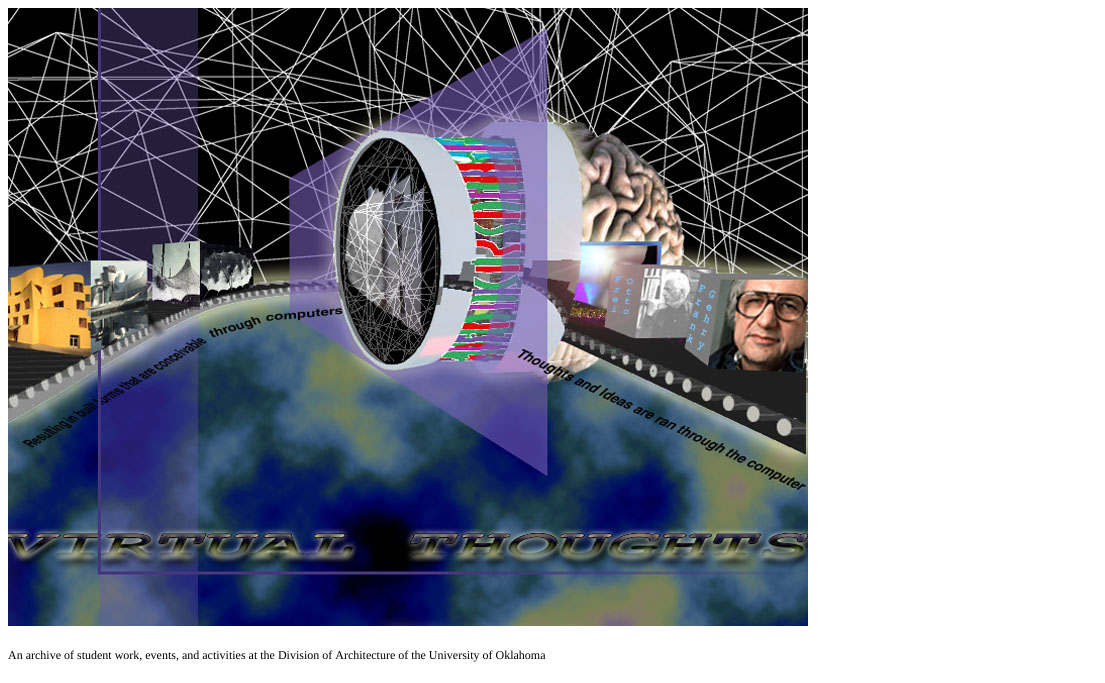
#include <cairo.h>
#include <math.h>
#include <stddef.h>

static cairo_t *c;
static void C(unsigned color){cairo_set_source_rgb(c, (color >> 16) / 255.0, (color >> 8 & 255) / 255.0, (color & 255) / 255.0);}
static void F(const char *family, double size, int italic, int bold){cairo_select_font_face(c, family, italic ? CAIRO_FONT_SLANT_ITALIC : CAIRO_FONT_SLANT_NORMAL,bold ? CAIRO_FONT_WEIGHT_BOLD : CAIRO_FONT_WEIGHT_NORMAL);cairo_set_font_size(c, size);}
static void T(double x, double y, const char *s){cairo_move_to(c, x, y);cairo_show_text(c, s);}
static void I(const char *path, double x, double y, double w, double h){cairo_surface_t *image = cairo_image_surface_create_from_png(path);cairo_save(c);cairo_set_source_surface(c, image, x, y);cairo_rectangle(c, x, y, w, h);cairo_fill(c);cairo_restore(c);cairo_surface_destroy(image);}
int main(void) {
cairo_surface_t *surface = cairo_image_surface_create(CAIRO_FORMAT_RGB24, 1105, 683);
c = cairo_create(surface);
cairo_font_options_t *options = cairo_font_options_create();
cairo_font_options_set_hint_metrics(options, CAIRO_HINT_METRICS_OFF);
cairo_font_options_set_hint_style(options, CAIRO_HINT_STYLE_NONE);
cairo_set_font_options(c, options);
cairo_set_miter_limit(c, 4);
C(0xffffff);
cairo_paint(c);
I("1.png",8,8,800,618);
F("Liberation Serif",12,0,0);
C(0x000000);
T(8,659,"An archive of student work, events, and activities at the Division of Architecture of the University of Oklahoma");
cairo_surface_write_to_png(surface, "o.png");
cairo_font_options_destroy(options);
cairo_destroy(c);
cairo_surface_destroy(surface);
return 0;
}
